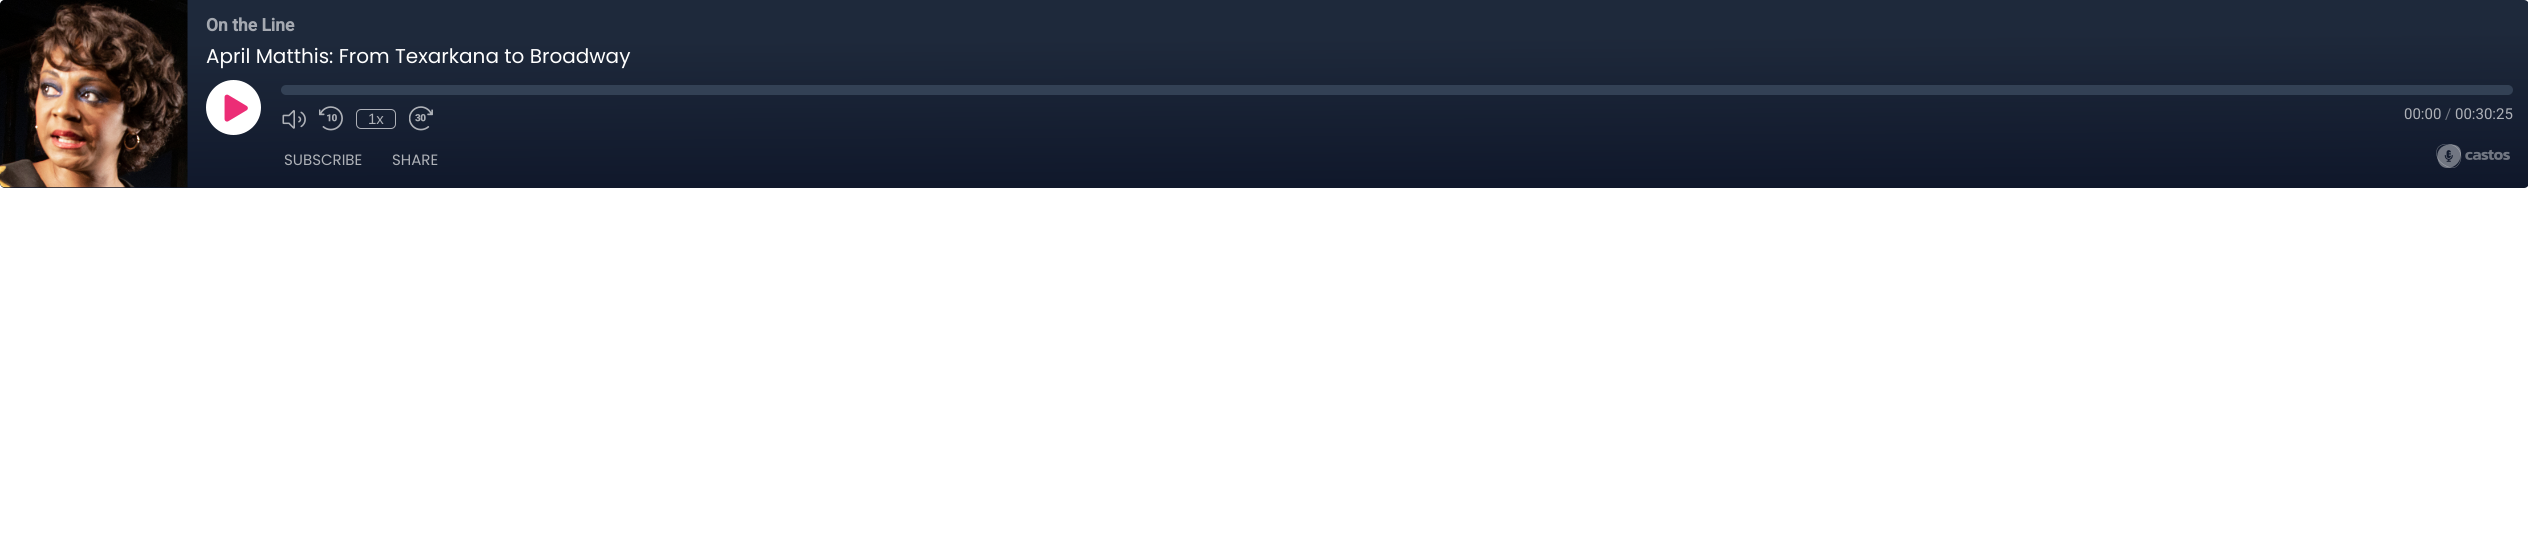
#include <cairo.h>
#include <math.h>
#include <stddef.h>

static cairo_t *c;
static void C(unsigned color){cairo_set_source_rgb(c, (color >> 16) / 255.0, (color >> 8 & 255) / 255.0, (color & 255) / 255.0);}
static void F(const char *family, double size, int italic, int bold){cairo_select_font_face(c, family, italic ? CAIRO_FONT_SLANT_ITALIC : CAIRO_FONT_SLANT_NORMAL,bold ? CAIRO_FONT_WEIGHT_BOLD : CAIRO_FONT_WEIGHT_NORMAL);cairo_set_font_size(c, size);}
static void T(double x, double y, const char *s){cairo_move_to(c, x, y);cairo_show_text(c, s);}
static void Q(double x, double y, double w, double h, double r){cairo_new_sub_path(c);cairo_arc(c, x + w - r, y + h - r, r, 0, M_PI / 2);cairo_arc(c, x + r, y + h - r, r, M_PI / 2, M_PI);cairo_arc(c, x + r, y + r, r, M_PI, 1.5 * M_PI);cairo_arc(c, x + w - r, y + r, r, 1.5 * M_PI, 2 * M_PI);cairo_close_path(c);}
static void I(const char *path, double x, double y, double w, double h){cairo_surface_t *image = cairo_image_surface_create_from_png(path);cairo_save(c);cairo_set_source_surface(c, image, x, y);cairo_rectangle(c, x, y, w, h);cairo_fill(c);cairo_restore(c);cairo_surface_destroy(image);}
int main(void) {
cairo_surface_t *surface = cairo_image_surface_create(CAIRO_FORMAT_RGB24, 2528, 553);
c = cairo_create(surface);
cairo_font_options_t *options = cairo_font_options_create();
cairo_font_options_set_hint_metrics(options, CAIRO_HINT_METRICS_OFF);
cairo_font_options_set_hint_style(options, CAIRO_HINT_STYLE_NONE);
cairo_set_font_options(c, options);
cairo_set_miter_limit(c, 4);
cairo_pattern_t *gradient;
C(0xffffff);
cairo_paint(c);
gradient = cairo_pattern_create_linear(1265,195,1264,-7.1);
cairo_pattern_add_color_stop_rgba(gradient,.01,0.059,0.09,0.165,1);
cairo_pattern_add_color_stop_rgba(gradient,.78,0.118,0.161,0.231,1);
cairo_set_source(c,gradient);
cairo_pattern_destroy(gradient);
Q(0,0,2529,188,5);
cairo_fill(c);
I("1.png",0,0,188,188);
F("Roboto",17.5,0,1);
C(0xa5a9b1);
T(206,31,"On the Line");
F("Poppins",20,0,0);
C(0xffffff);
T(206,63,"April Matthis: From Texarkana to Broadway");
cairo_new_path(c);
cairo_arc(c,233.5,107.5,27.5,0,2 * M_PI);
cairo_fill(c);
I("2.png",224,94,24,28);
C(0x334155);
Q(281,85,2232,10,5);
cairo_fill(c);
I("3.png",282,110,24,19);
I("4.png",319,106,24,25);
Q(356.5,109.5,39,19,4.5);
C(0xaeb1b8);
cairo_set_line_width(c,1);
cairo_stroke(c);
F("Liberation Sans",15,0,0);
C(0xaeb1b7);
T(368,124,"1x");
I("5.png",409,106,24,25);
F("Roboto",15,0,0);
T(2404,119,"00:00");
C(0x717782);
T(2445,119,"/");
C(0xaeb1b7);
T(2455,119,"00:30:25");
F("Poppins",15,0,0);
T(284,165,"SUBSCRIBE");
T(392,165,"SHARE");
I("6.png",2436,144,74,24);
cairo_surface_write_to_png(surface, "o.png");
cairo_font_options_destroy(options);
cairo_destroy(c);
cairo_surface_destroy(surface);
return 0;
}
